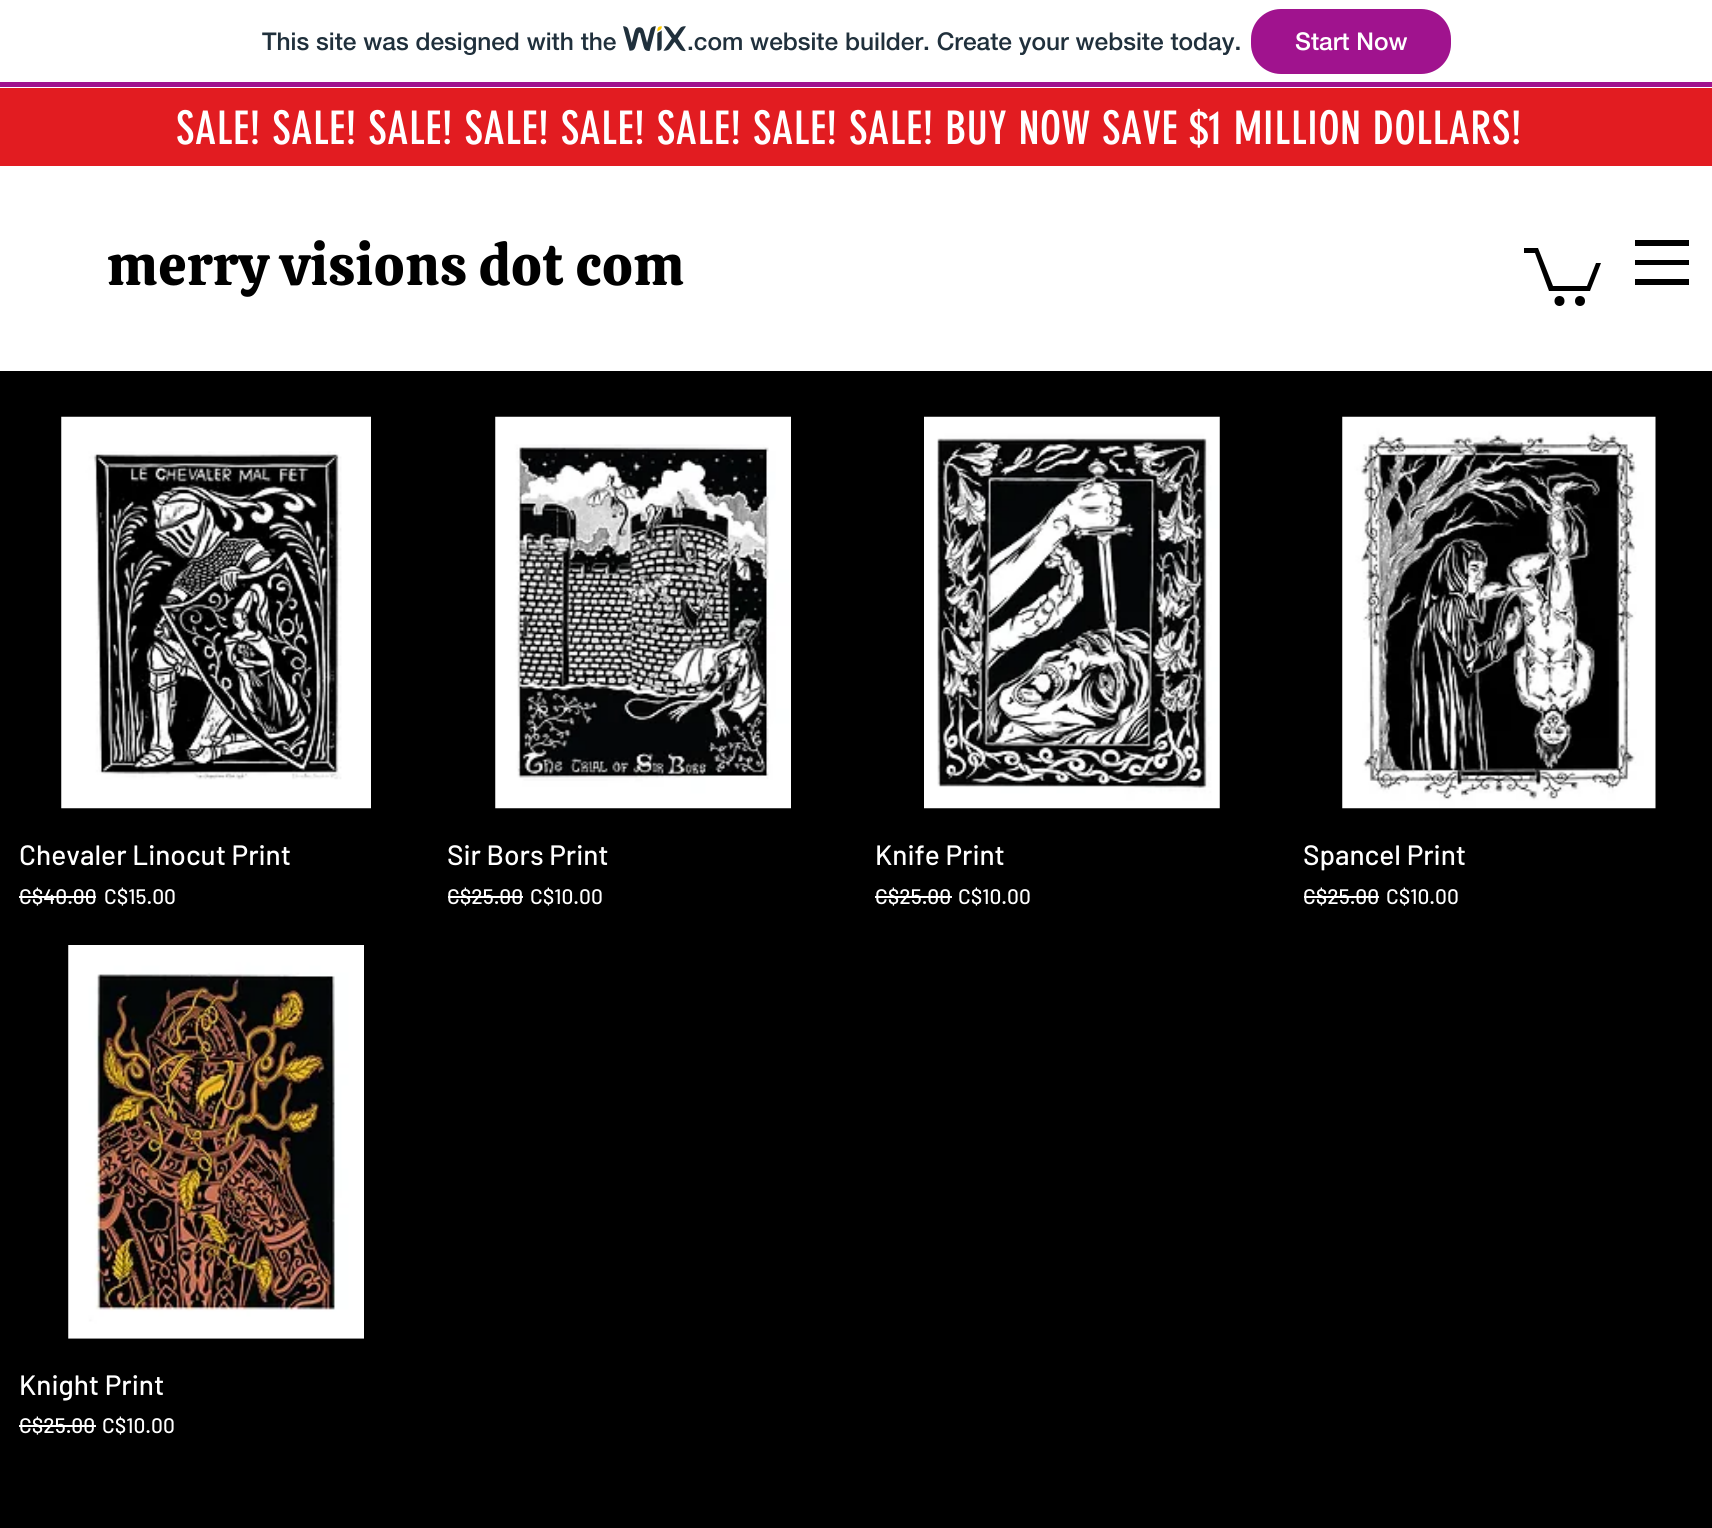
#include <cairo.h>
#include <math.h>
#include <stddef.h>

static cairo_t *c;
static void C(unsigned color){cairo_set_source_rgb(c, (color >> 16) / 255.0, (color >> 8 & 255) / 255.0, (color & 255) / 255.0);}
static void F(const char *family, double size, int italic, int bold){cairo_select_font_face(c, family, italic ? CAIRO_FONT_SLANT_ITALIC : CAIRO_FONT_SLANT_NORMAL,bold ? CAIRO_FONT_WEIGHT_BOLD : CAIRO_FONT_WEIGHT_NORMAL);cairo_set_font_size(c, size);}
static void T(double x, double y, const char *s){cairo_move_to(c, x, y);cairo_show_text(c, s);}
static void L(double x, double y, const char *s, double letter, double word){cairo_move_to(c, x, y);while (*s) {char ch[5] = {0};int n = 0;do ch[n++] = *s++; while ((*s & 0xC0) == 0x80);cairo_show_text(c, ch);cairo_rel_move_to(c, letter + word * (*ch == ' '), 0);}}
static void R(double x, double y, double w, double h){cairo_rectangle(c, x, y, w, h);cairo_fill(c);}
static void Q(double x, double y, double w, double h, double r){cairo_new_sub_path(c);cairo_arc(c, x + w - r, y + h - r, r, 0, M_PI / 2);cairo_arc(c, x + r, y + h - r, r, M_PI / 2, M_PI);cairo_arc(c, x + r, y + r, r, M_PI, 1.5 * M_PI);cairo_arc(c, x + w - r, y + r, r, 1.5 * M_PI, 2 * M_PI);cairo_close_path(c);}
static void I(const char *path, double x, double y, double w, double h){cairo_surface_t *image = cairo_image_surface_create_from_png(path);cairo_save(c);cairo_set_source_surface(c, image, x, y);cairo_rectangle(c, x, y, w, h);cairo_fill(c);cairo_restore(c);cairo_surface_destroy(image);}
int main(void) {
cairo_surface_t *surface = cairo_image_surface_create(CAIRO_FORMAT_RGB24, 1712, 1528);
c = cairo_create(surface);
cairo_font_options_t *options = cairo_font_options_create();
cairo_font_options_set_hint_metrics(options, CAIRO_HINT_METRICS_OFF);
cairo_font_options_set_hint_style(options, CAIRO_HINT_STYLE_NONE);
cairo_set_font_options(c, options);
cairo_set_miter_limit(c, 4);
C(0xffffff);
cairo_paint(c);
C(0xa0138e);
R(0,82,1712,5);
F("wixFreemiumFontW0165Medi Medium",24.5,0,0);
C(0x20303c);
T(262,50,"This site was designed with the");
I("1.png",623,26,63,26);
T(687,50,".com website builder. Create your website today.");
C(0xa0138e);
Q(1252,10,198,63,29);
cairo_fill_preserve(c);
cairo_stroke(c);
C(0xffffff);
T(1295,50,"Start Now");
C(0xe21c21);
R(0,88,1712,78);
F("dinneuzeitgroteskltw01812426",45.5,0,0);
C(0xffffff);
L(176,144,"SALE! SALE! SALE! SALE! SALE! SALE! SALE! SALE! BUY NOW SAVE $1 MILLION DOLLARS!",.45,0);
F("Calistoga",56,0,0);
C(0x000000);
L(107,285,"merry visions dot com",.6,0);
cairo_new_path(c);
cairo_move_to(c,1601,263);
cairo_line_to(c,1590,291);
cairo_line_to(c,1549,291);
cairo_line_to(c,1535,253);
cairo_line_to(c,1524,253);
cairo_line_to(c,1524,248);
cairo_line_to(c,1538,248);
cairo_line_to(c,1553,286);
cairo_line_to(c,1587,286);
cairo_line_to(c,1596,263);
cairo_fill(c);
cairo_arc(c,1580,301,5,0,2 * M_PI);
cairo_fill(c);
cairo_arc(c,1559.5,301,5,0,2 * M_PI);
cairo_fill(c);
R(1635,279,54,6);
R(1635,240,54,6);
R(1635,260,54,5);
R(0,371,1712,1157);
I("2.png",61,416,310,393);
F("Barlow Medium",28,0,0);
C(0xffffff);
T(19,865,"Chevaler Linocut Print");
F("Barlow Medium",21,0,0);
T(19,904,"C$40.00");
R(19,896,77,2);
T(104,904,"C$15.00");
I("3.png",495,416,296,393);
F("Barlow Medium",28,0,0);
T(447,865,"Sir Bors Print");
F("Barlow Medium",21,0,0);
T(447,904,"C$25.00");
R(448,896,75,2);
T(530,904,"C$10.00");
I("4.png",924,416,296,393);
F("Barlow Medium",28,0,0);
T(875,865,"Knife Print");
F("Barlow Medium",21,0,0);
T(875,904,"C$25.00");
R(875,896,77,2);
T(958,904,"C$10.00");
I("5.png",1342,416,314,393);
F("Barlow Medium",28,0,0);
T(1303,865,"Spancel Print");
F("Barlow Medium",21,0,0);
T(1303,904,"C$25.00");
R(1304,896,75,2);
T(1386,904,"C$10.00");
I("6.png",68,945,296,394);
F("Barlow Medium",28,0,0);
T(19,1395,"Knight Print");
F("Barlow Medium",21,0,0);
T(19,1433,"C$25.00");
R(19,1425,77,2);
T(102,1433,"C$10.00");
cairo_surface_write_to_png(surface, "o.png");
cairo_font_options_destroy(options);
cairo_destroy(c);
cairo_surface_destroy(surface);
return 0;
}
